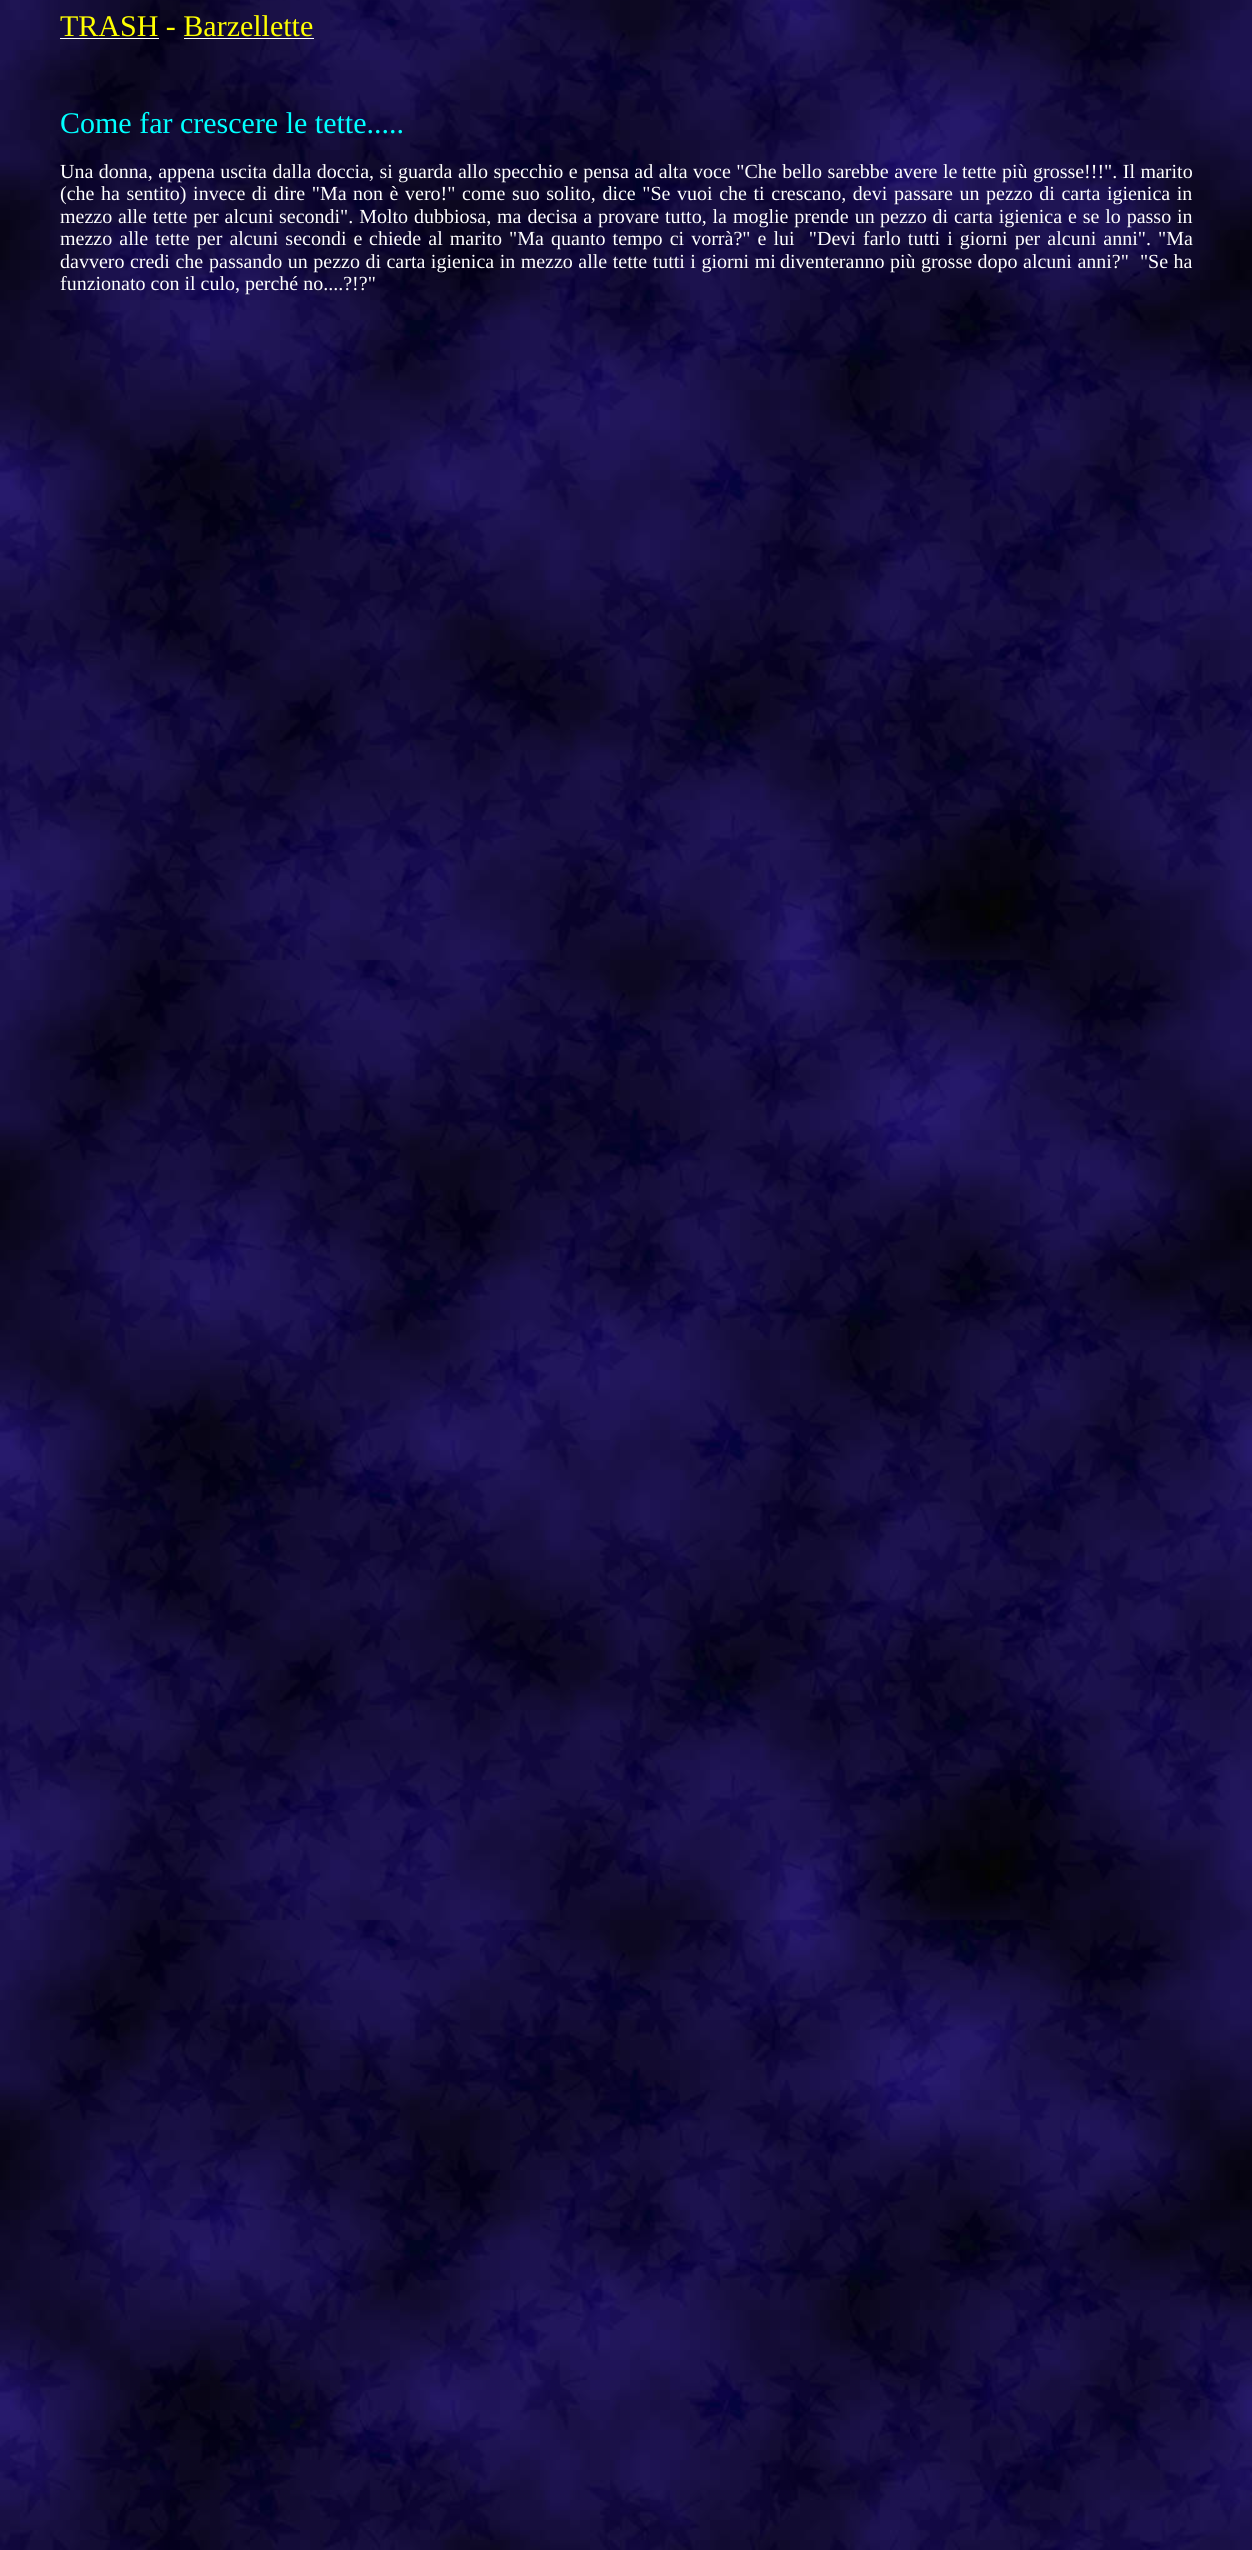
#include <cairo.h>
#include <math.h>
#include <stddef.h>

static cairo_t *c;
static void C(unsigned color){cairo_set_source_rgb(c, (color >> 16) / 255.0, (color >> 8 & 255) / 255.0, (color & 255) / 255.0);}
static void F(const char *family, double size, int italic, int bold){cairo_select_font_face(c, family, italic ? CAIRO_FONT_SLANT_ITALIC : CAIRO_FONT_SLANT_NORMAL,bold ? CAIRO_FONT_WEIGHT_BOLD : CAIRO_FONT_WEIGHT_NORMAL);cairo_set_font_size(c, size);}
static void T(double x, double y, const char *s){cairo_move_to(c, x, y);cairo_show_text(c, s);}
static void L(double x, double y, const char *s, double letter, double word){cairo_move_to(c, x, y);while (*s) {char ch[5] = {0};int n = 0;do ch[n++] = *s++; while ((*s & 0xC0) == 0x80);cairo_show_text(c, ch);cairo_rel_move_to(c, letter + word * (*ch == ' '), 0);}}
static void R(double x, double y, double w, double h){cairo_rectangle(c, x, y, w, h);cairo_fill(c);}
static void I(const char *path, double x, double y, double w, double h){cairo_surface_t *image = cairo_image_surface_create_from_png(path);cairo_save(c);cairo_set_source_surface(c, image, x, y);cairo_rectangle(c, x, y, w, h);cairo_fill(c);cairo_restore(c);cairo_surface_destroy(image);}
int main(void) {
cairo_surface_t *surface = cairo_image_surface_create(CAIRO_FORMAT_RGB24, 1252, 2550);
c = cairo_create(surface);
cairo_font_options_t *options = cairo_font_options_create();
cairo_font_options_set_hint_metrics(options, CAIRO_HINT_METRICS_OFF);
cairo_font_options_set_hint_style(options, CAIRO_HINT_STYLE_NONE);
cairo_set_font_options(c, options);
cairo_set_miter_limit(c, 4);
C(0xffffff);
cairo_paint(c);
I("1.png",0,0,1252,2550);
F("Liberation Serif",30,0,0);
C(0xffff00);
T(60,36,"TRASH - Barzellette");
C(0xffffff);
R(60,38,99,1);
R(184,38,130,1);
C(0x00ffff);
T(60,133,"Come far crescere le tette.....");
F("Liberation Serif",20,0,0);
C(0xffffff);
L(60,178,"Una donna, appena uscita dalla doccia, si",0,.5);
L(398,178,"guarda allo specchio e pensa ad alta voce \"Che bello sarebbe avere le",0,.5);
L(962,178,"tette più grosse!!!\". Il marito",0,.5);
L(60,200,"(che ha sentito) invece di dire \"Ma",0,1.6);
L(353,200,"non è vero!\" come suo solito, dice \"Se vuoi che ti crescano, devi",0,1.6);
L(894,200,"passare un pezzo di carta igienica in",0,1.6);
L(60,223,"mezzo alle tette per alcuni",0,.9);
L(279,223,"secondi\". Molto dubbiosa, ma decisa a provare tutto, la moglie prende un",0,.9);
L(880,223,"pezzo di carta igienica e se lo passo in",0,.9);
L(60,245,"mezzo alle tette per alcuni secondi e",0,2.1);
L(369,245,"chiede al marito \"Ma quanto tempo ci vorrà?\" e lui  \"Devi",0,2.1);
L(863,245,"farlo tutti i giorni per alcuni anni\". \"Ma",0,2.1);
L(60,268,"davvero credi che",0,.5);
L(209,268,"passando un pezzo di carta igienica in mezzo alle tette tutti i giorni mi",0,.5);
L(780,268,"diventeranno più grosse dopo alcuni anni?\"  \"Se ha",0,.5);
T(60,290,"funzionato con il culo, perché no....?!?\"");
cairo_surface_write_to_png(surface, "o.png");
cairo_font_options_destroy(options);
cairo_destroy(c);
cairo_surface_destroy(surface);
return 0;
}
